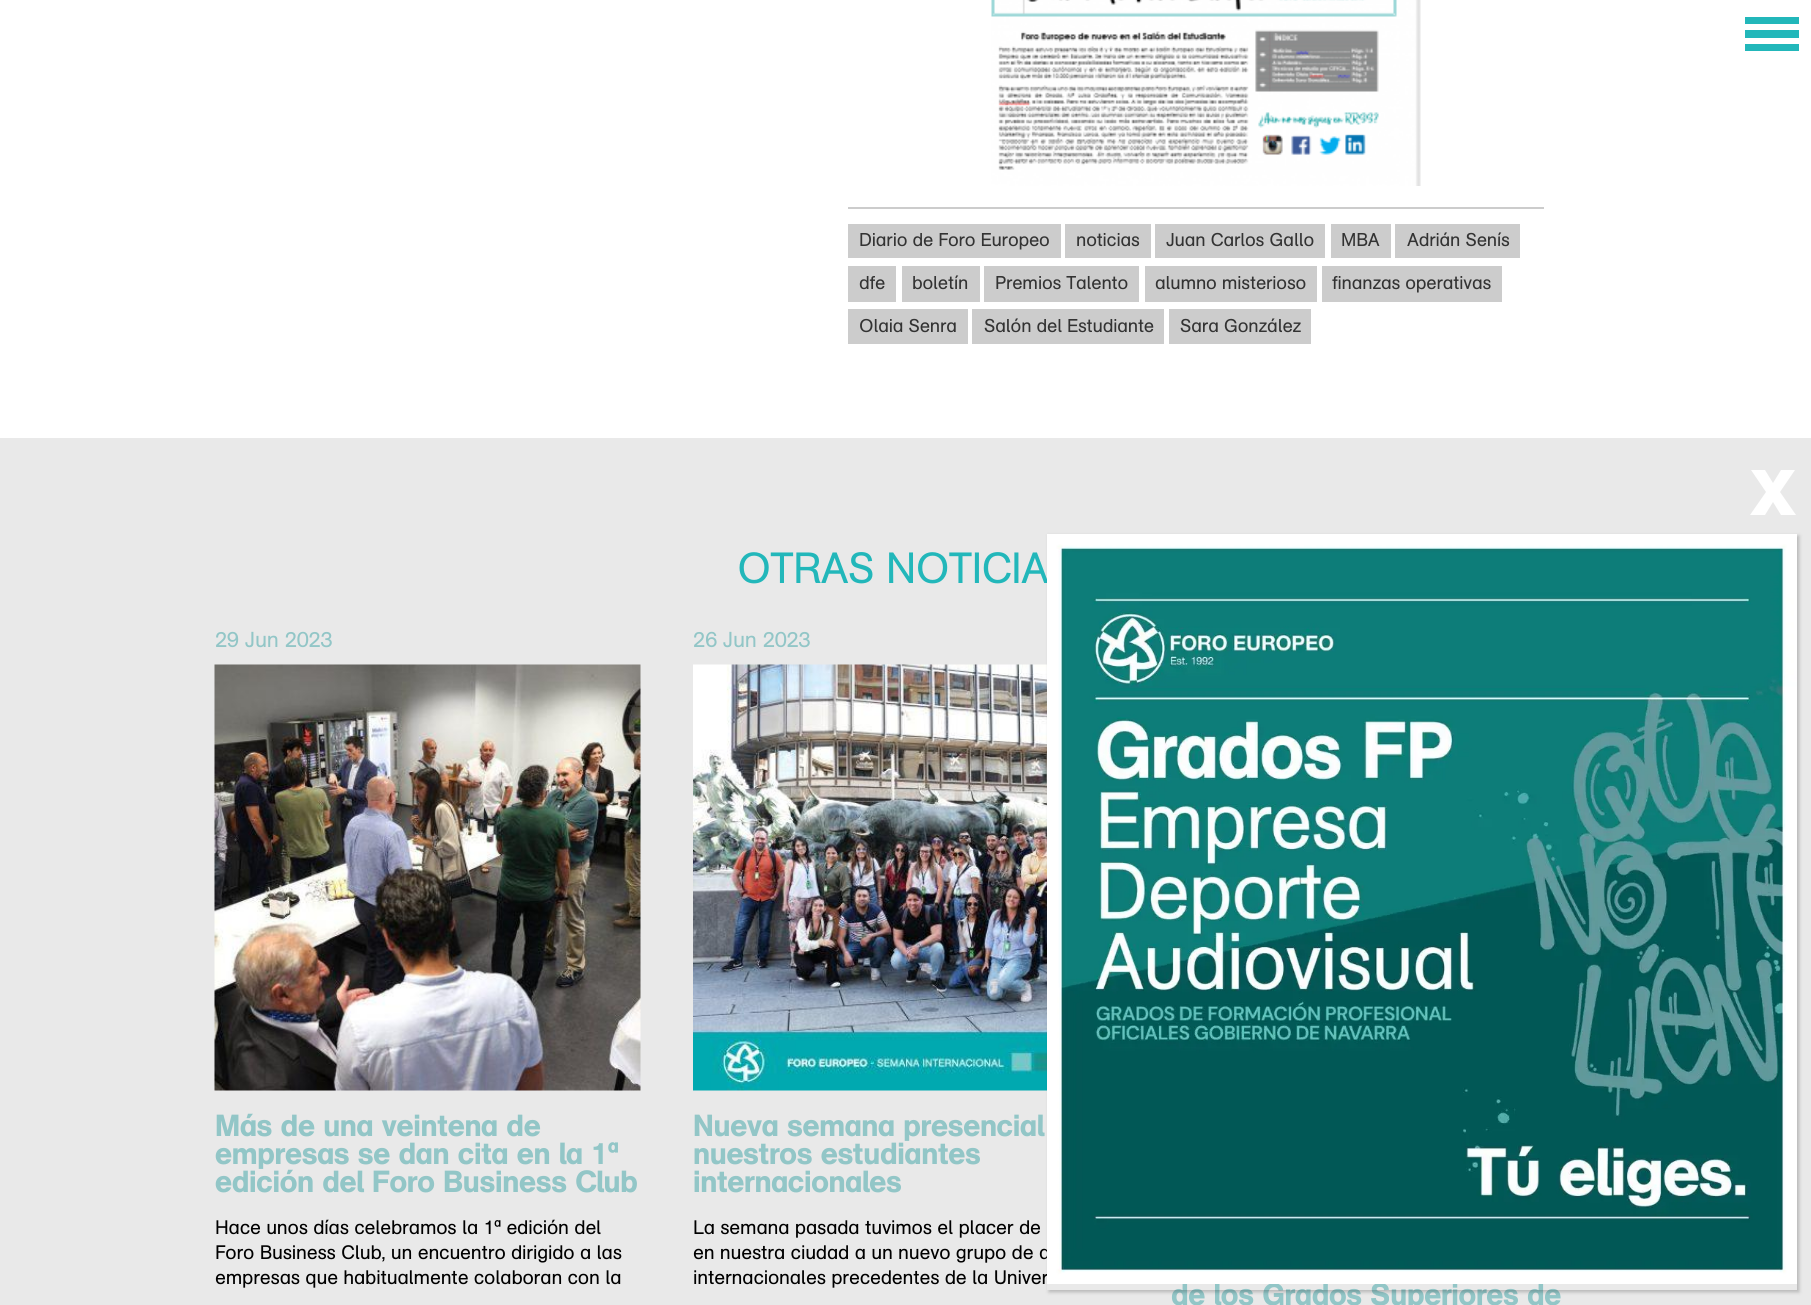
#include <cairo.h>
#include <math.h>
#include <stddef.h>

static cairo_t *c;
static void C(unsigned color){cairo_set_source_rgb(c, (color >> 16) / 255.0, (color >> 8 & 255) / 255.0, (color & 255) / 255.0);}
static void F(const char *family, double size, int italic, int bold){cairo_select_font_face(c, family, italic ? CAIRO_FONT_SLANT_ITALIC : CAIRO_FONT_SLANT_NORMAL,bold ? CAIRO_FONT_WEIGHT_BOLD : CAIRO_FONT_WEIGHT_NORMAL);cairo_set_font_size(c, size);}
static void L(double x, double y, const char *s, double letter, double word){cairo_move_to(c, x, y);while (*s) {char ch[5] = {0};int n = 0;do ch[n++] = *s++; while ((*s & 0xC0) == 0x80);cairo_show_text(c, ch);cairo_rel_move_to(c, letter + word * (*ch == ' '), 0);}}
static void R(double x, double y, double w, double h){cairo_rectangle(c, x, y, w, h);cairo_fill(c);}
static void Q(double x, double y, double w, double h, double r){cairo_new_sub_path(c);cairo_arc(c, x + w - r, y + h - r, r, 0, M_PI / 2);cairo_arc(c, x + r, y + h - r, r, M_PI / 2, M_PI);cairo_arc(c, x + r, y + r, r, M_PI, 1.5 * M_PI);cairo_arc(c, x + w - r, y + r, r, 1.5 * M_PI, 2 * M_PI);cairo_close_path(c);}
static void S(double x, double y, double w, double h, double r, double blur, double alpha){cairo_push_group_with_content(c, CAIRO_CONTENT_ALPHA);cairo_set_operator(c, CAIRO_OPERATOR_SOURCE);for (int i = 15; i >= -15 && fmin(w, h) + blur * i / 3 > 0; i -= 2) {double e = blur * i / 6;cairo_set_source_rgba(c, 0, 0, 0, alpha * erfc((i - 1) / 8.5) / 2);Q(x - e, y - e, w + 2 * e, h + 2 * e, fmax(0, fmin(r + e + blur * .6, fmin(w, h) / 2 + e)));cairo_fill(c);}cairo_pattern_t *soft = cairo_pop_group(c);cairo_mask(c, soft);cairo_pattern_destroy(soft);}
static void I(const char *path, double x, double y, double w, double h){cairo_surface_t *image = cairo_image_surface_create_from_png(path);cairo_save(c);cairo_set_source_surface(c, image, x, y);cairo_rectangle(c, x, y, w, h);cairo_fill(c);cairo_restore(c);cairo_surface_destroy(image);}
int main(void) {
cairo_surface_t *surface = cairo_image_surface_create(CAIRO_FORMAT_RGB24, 1811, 1305);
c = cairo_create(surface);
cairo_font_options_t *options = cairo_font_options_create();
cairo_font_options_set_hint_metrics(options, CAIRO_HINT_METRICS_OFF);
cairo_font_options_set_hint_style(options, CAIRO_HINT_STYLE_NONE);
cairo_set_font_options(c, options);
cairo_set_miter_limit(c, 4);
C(0xffffff);
cairo_paint(c);
C(0x22b7ba);
R(1745,30,54,8);
R(1745,17,54,7);
R(1745,44,54,7);
I("1.png",991,0,430,186);
C(0xcccccc);
R(848,207,696,2);
R(848,224,213,34);
F("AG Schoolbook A",18.4,0,0);
C(0x333333);
L(859,246,"Diario de Foro Europeo",-.2,0);
C(0xcccccc);
R(1065,224,86,34);
C(0x333333);
L(1076,246,"noticias",-.2,0);
C(0xcccccc);
R(1155,224,170,34);
C(0x333333);
L(1166,246,"Juan Carlos Gallo",-.2,0);
C(0xcccccc);
R(1331,224,60,34);
C(0x333333);
L(1341,246,"MBA",-.2,0);
C(0xcccccc);
R(1395,224,125,34);
C(0x333333);
L(1407,246,"Adrián Senís",-.2,0);
C(0xcccccc);
R(848,266,48,36);
C(0x333333);
L(859,289,"dfe",-.2,0);
C(0xcccccc);
R(902,266,78,36);
C(0x333333);
L(912,289,"boletín",-.2,0);
C(0xcccccc);
R(984,266,155,36);
C(0x333333);
L(995,289,"Premios Talento",-.2,0);
C(0xcccccc);
R(1145,266,172,36);
C(0x333333);
L(1155,289,"alumno misterioso",-.2,0);
C(0xcccccc);
R(1322,266,180,36);
C(0x333333);
L(1332,289,"finanzas operativas",-.2,0);
C(0xcccccc);
R(848,309,120,35);
C(0x333333);
L(859,332,"Olaia Senra",-.2,0);
C(0xcccccc);
R(972,309,192,35);
C(0x333333);
L(984,332,"Salón del Estudiante",-.2,0);
C(0xcccccc);
R(1169,309,142,35);
C(0x333333);
L(1180,332,"Sara González",-.2,0);
C(0xe9e9e9);
R(0,438,1811,867);
F("AG Schoolbook A",43.25,0,0);
C(0x22b7ba);
L(737,583,"OTRAS NOTICIA",-.9,0);
F("AG Schoolbook A",21.5,0,0);
C(0x92c6c7);
L(215,647,"29 Jun 2023",-.2,0);
I("2.png",214,664,427,427);
F("AG Schoolbook A Medium",30.25,0,0);
L(215,1136,"Más de una veintena de",-.3,0);
L(215,1164,"empresas se dan cita en la 1ª",-.3,0);
L(215,1192,"edición del Foro Business Club",-.3,0);
F("AG Schoolbook A",19.4,0,0);
C(0x000000);
L(215,1234,"Hace unos días celebramos la 1ª edición del",-.2,0);
L(215,1259,"Foro Business Club, un encuentro dirigido a las",-.2,0);
L(215,1284,"empresas que habitualmente colaboran con la",-.2,0);
F("AG Schoolbook A",21.5,0,0);
C(0x92c6c7);
L(693,647,"26 Jun 2023",-.2,0);
I("3.png",693,664,354,427);
F("AG Schoolbook A Medium",30.25,0,0);
L(693,1136,"Nueva semana presencial",-.3,0);
L(693,1164,"nuestros estudiantes",-.3,0);
L(693,1192,"internacionales",-.3,0);
F("AG Schoolbook A",19.4,0,0);
C(0x000000);
L(693,1234,"La semana pasada tuvimos el placer de",-.2,0);
L(693,1259,"en nuestra ciudad a un nuevo grupo de a",-.2,0);
L(693,1284,"internacionales precedentes de la Univer",-.2,0);
F("AG Schoolbook A Medium",30.25,0,0);
C(0x92c6c7);
L(1171,1305,"de los Grados Superiores de",-.3,0);
cairo_save(c);
cairo_set_fill_rule(c,CAIRO_FILL_RULE_EVEN_ODD);
cairo_new_path(c);
cairo_move_to(c,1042,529);
cairo_line_to(c,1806,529);
cairo_line_to(c,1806,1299);
cairo_line_to(c,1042,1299);
cairo_close_path(c);
cairo_move_to(c,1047,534);
cairo_line_to(c,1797,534);
cairo_line_to(c,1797,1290);
cairo_line_to(c,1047,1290);
cairo_close_path(c);
cairo_clip(c);
C(0x020202);
S(1049,536,750,756,0,2,.23);
cairo_restore(c);
C(0xffffff);
cairo_new_path(c);
cairo_move_to(c,1795,470);
cairo_line_to(c,1780,492);
cairo_line_to(c,1796,515);
cairo_line_to(c,1781,515);
cairo_line_to(c,1773,502);
cairo_line_to(c,1765,515);
cairo_line_to(c,1750,515);
cairo_line_to(c,1766,492);
cairo_line_to(c,1751,470);
cairo_line_to(c,1765,470);
cairo_line_to(c,1773,483);
cairo_line_to(c,1781,470);
cairo_close_path(c);
cairo_fill(c);
I("4.png",1047,534,750,750);
cairo_surface_write_to_png(surface, "o.png");
cairo_font_options_destroy(options);
cairo_destroy(c);
cairo_surface_destroy(surface);
return 0;
}
